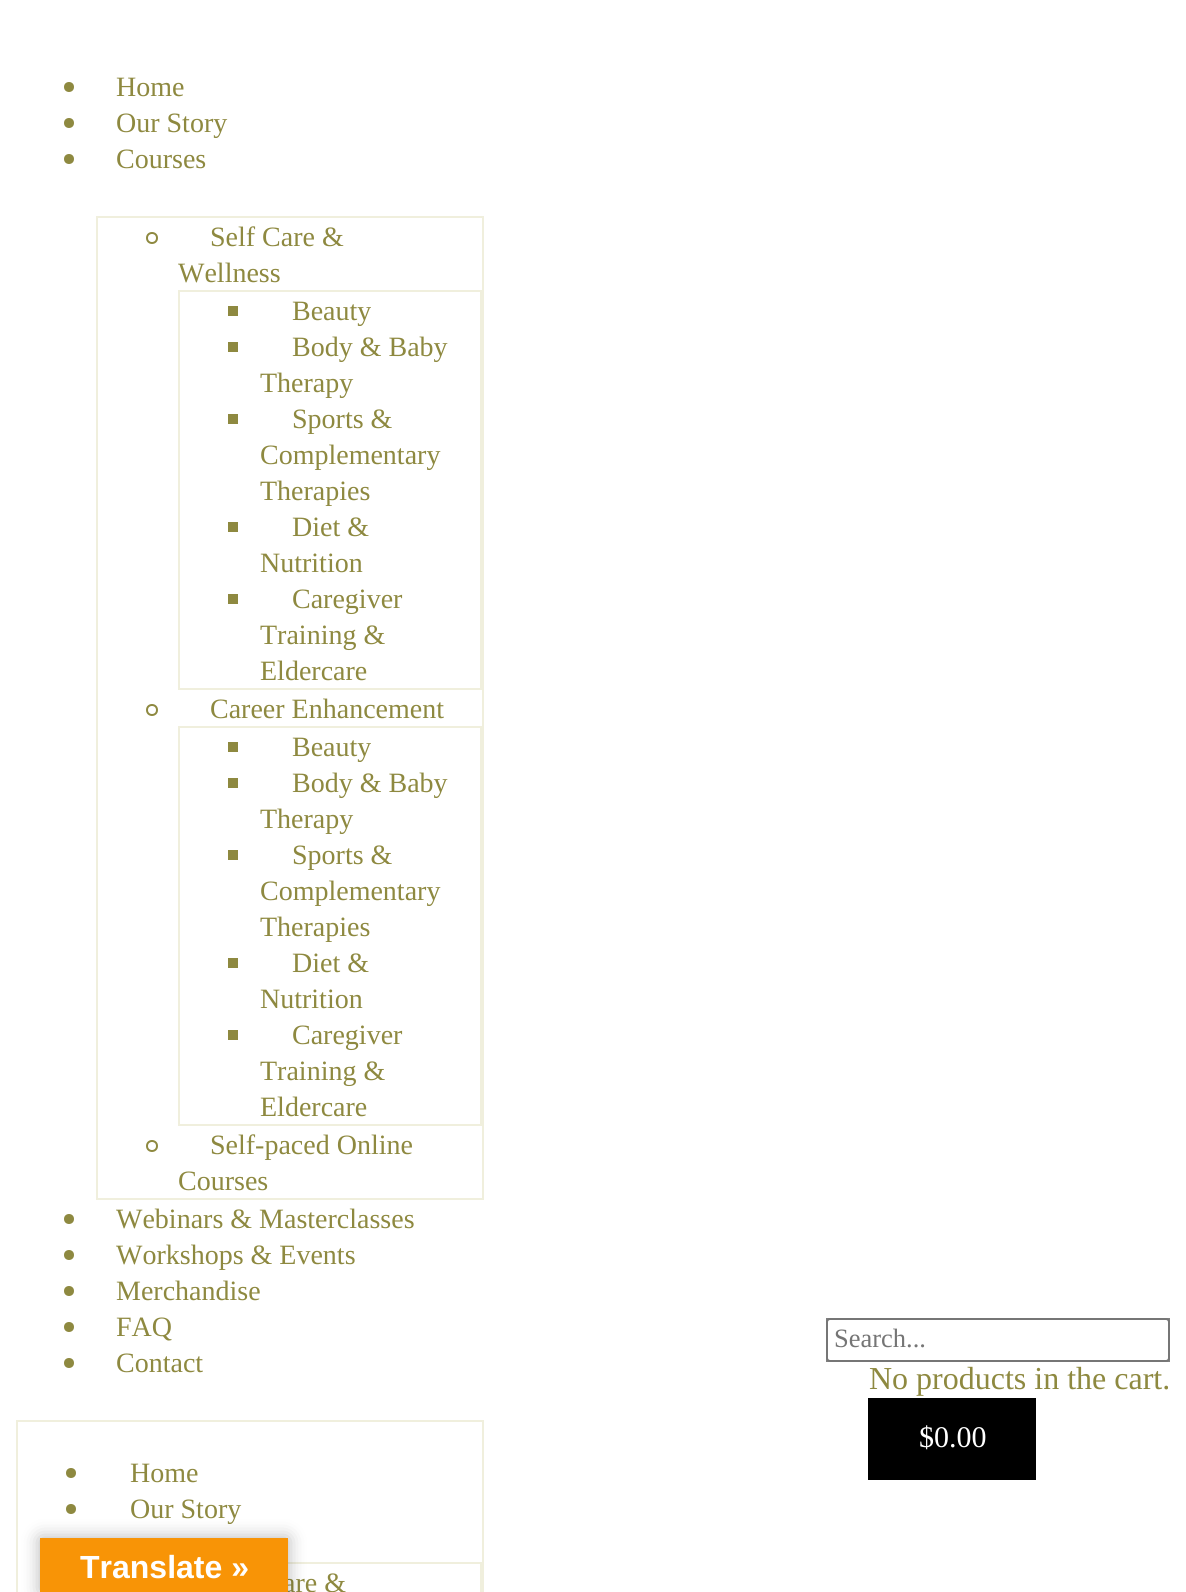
#include <cairo.h>
#include <math.h>
#include <stddef.h>

static cairo_t *c;
static void C(unsigned color){cairo_set_source_rgb(c, (color >> 16) / 255.0, (color >> 8 & 255) / 255.0, (color & 255) / 255.0);}
static void F(const char *family, double size, int italic, int bold){cairo_select_font_face(c, family, italic ? CAIRO_FONT_SLANT_ITALIC : CAIRO_FONT_SLANT_NORMAL,bold ? CAIRO_FONT_WEIGHT_BOLD : CAIRO_FONT_WEIGHT_NORMAL);cairo_set_font_size(c, size);}
static void T(double x, double y, const char *s){cairo_move_to(c, x, y);cairo_show_text(c, s);}
static void R(double x, double y, double w, double h){cairo_rectangle(c, x, y, w, h);cairo_fill(c);}
static void Q(double x, double y, double w, double h, double r){cairo_new_sub_path(c);cairo_arc(c, x + w - r, y + h - r, r, 0, M_PI / 2);cairo_arc(c, x + r, y + h - r, r, M_PI / 2, M_PI);cairo_arc(c, x + r, y + r, r, M_PI, 1.5 * M_PI);cairo_arc(c, x + w - r, y + r, r, 1.5 * M_PI, 2 * M_PI);cairo_close_path(c);}
static void S(double x, double y, double w, double h, double r, double blur, double alpha){cairo_push_group_with_content(c, CAIRO_CONTENT_ALPHA);cairo_set_operator(c, CAIRO_OPERATOR_SOURCE);for (int i = 15; i >= -15 && fmin(w, h) + blur * i / 3 > 0; i -= 2) {double e = blur * i / 6;cairo_set_source_rgba(c, 0, 0, 0, alpha * erfc((i - 1) / 8.5) / 2);Q(x - e, y - e, w + 2 * e, h + 2 * e, fmax(0, fmin(r + e + blur * .6, fmin(w, h) / 2 + e)));cairo_fill(c);}cairo_pattern_t *soft = cairo_pop_group(c);cairo_mask(c, soft);cairo_pattern_destroy(soft);}
int main(void) {
cairo_surface_t *surface = cairo_image_surface_create(CAIRO_FORMAT_RGB24, 1186, 1592);
c = cairo_create(surface);
cairo_font_options_t *options = cairo_font_options_create();
cairo_font_options_set_hint_metrics(options, CAIRO_HINT_METRICS_OFF);
cairo_font_options_set_hint_style(options, CAIRO_HINT_STYLE_NONE);
cairo_set_font_options(c, options);
cairo_set_miter_limit(c, 4);
C(0xffffff);
cairo_paint(c);
C(0x8e8940);
cairo_arc(c,69,87,5,0,2 * M_PI);
cairo_fill(c);
F("Liberation Serif",28,0,0);
T(116,96,"Home");
cairo_new_path(c);
cairo_arc(c,69,123,5,0,2 * M_PI);
cairo_fill(c);
T(116,132,"Our Story");
cairo_new_path(c);
cairo_arc(c,69,159,5,0,2 * M_PI);
cairo_fill(c);
T(116,168,"Courses");
cairo_rectangle(c,97,217,386,982);
C(0xf0efdd);
cairo_stroke(c);
cairo_arc(c,152,238,5,0,2 * M_PI);
C(0x8e8940);
cairo_stroke(c);
T(210,246,"Self Care &");
T(178,282,"Wellness");
cairo_rectangle(c,179,291,302,398);
C(0xf0efdd);
cairo_stroke(c);
C(0x8e8940);
R(228,306,10,10);
T(292,320,"Beauty");
R(228,342,10,10);
T(292,356,"Body & Baby");
T(260,392,"Therapy");
R(228,414,10,10);
T(292,428,"Sports &");
T(260,464,"Complementary");
T(260,500,"Therapies");
R(228,522,10,10);
T(292,536,"Diet &");
T(260,572,"Nutrition");
R(228,594,10,10);
T(292,608,"Caregiver");
T(260,644,"Training &");
T(260,680,"Eldercare");
cairo_new_path(c);
cairo_arc(c,152,710,5,0,2 * M_PI);
cairo_stroke(c);
T(210,718,"Career Enhancement");
cairo_rectangle(c,179,727,302,398);
C(0xf0efdd);
cairo_stroke(c);
C(0x8e8940);
R(228,742,10,10);
T(292,756,"Beauty");
R(228,778,10,10);
T(292,792,"Body & Baby");
T(260,828,"Therapy");
R(228,850,10,10);
T(292,864,"Sports &");
T(260,900,"Complementary");
T(260,936,"Therapies");
R(228,958,10,10);
T(292,972,"Diet &");
T(260,1008,"Nutrition");
R(228,1030,10,10);
T(292,1044,"Caregiver");
T(260,1080,"Training &");
T(260,1116,"Eldercare");
cairo_new_path(c);
cairo_arc(c,152,1146,5,0,2 * M_PI);
cairo_stroke(c);
T(210,1154,"Self-paced Online");
T(178,1190,"Courses");
cairo_new_path(c);
cairo_arc(c,69,1219,5,0,2 * M_PI);
cairo_fill(c);
T(116,1228,"Webinars & Masterclasses");
cairo_new_path(c);
cairo_arc(c,69,1255,5,0,2 * M_PI);
cairo_fill(c);
T(116,1264,"Workshops & Events");
cairo_new_path(c);
cairo_arc(c,69,1291,5,0,2 * M_PI);
cairo_fill(c);
T(116,1300,"Merchandise");
cairo_new_path(c);
cairo_arc(c,69,1327,5,0,2 * M_PI);
cairo_fill(c);
T(116,1336,"FAQ");
cairo_new_path(c);
cairo_arc(c,69,1363,5,0,2 * M_PI);
cairo_fill(c);
T(116,1372,"Contact");
cairo_rectangle(c,17,1421,466,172);
C(0xf0efdd);
cairo_stroke(c);
C(0x8e8940);
cairo_arc(c,71,1473,5,0,2 * M_PI);
cairo_fill(c);
T(130,1482,"Home");
cairo_new_path(c);
cairo_arc(c,71,1509,5,0,2 * M_PI);
cairo_fill(c);
T(130,1518,"Our Story");
cairo_rectangle(c,99,1563,382,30);
C(0xf0efdd);
cairo_stroke(c);
C(0x8e8940);
T(283,1592,"are &");
C(0x808080);
R(826,1318,344,44);
C(0xffffff);
Q(827,1319,342,42,3);
cairo_fill_preserve(c);
C(0x767676);
cairo_stroke(c);
F("Liberation Serif",26.5,0,0);
C(0x757575);
T(834,1347,"Search...");
F("Liberation Serif",32,0,0);
C(0x8e8940);
T(869,1389,"No products in the cart.");
C(0x000000);
R(868,1398,168,82);
F("Liberation Serif",30,0,0);
C(0xffffff);
T(919,1447,"$0.00");
C(0x000000);
S(40,1538,248,54,0,9,.3);
C(0xf89406);
R(40,1538,248,54);
F("Liberation Sans",32,0,1);
C(0xffffff);
T(80,1578,"Translate »");
cairo_surface_write_to_png(surface, "o.png");
cairo_font_options_destroy(options);
cairo_destroy(c);
cairo_surface_destroy(surface);
return 0;
}
